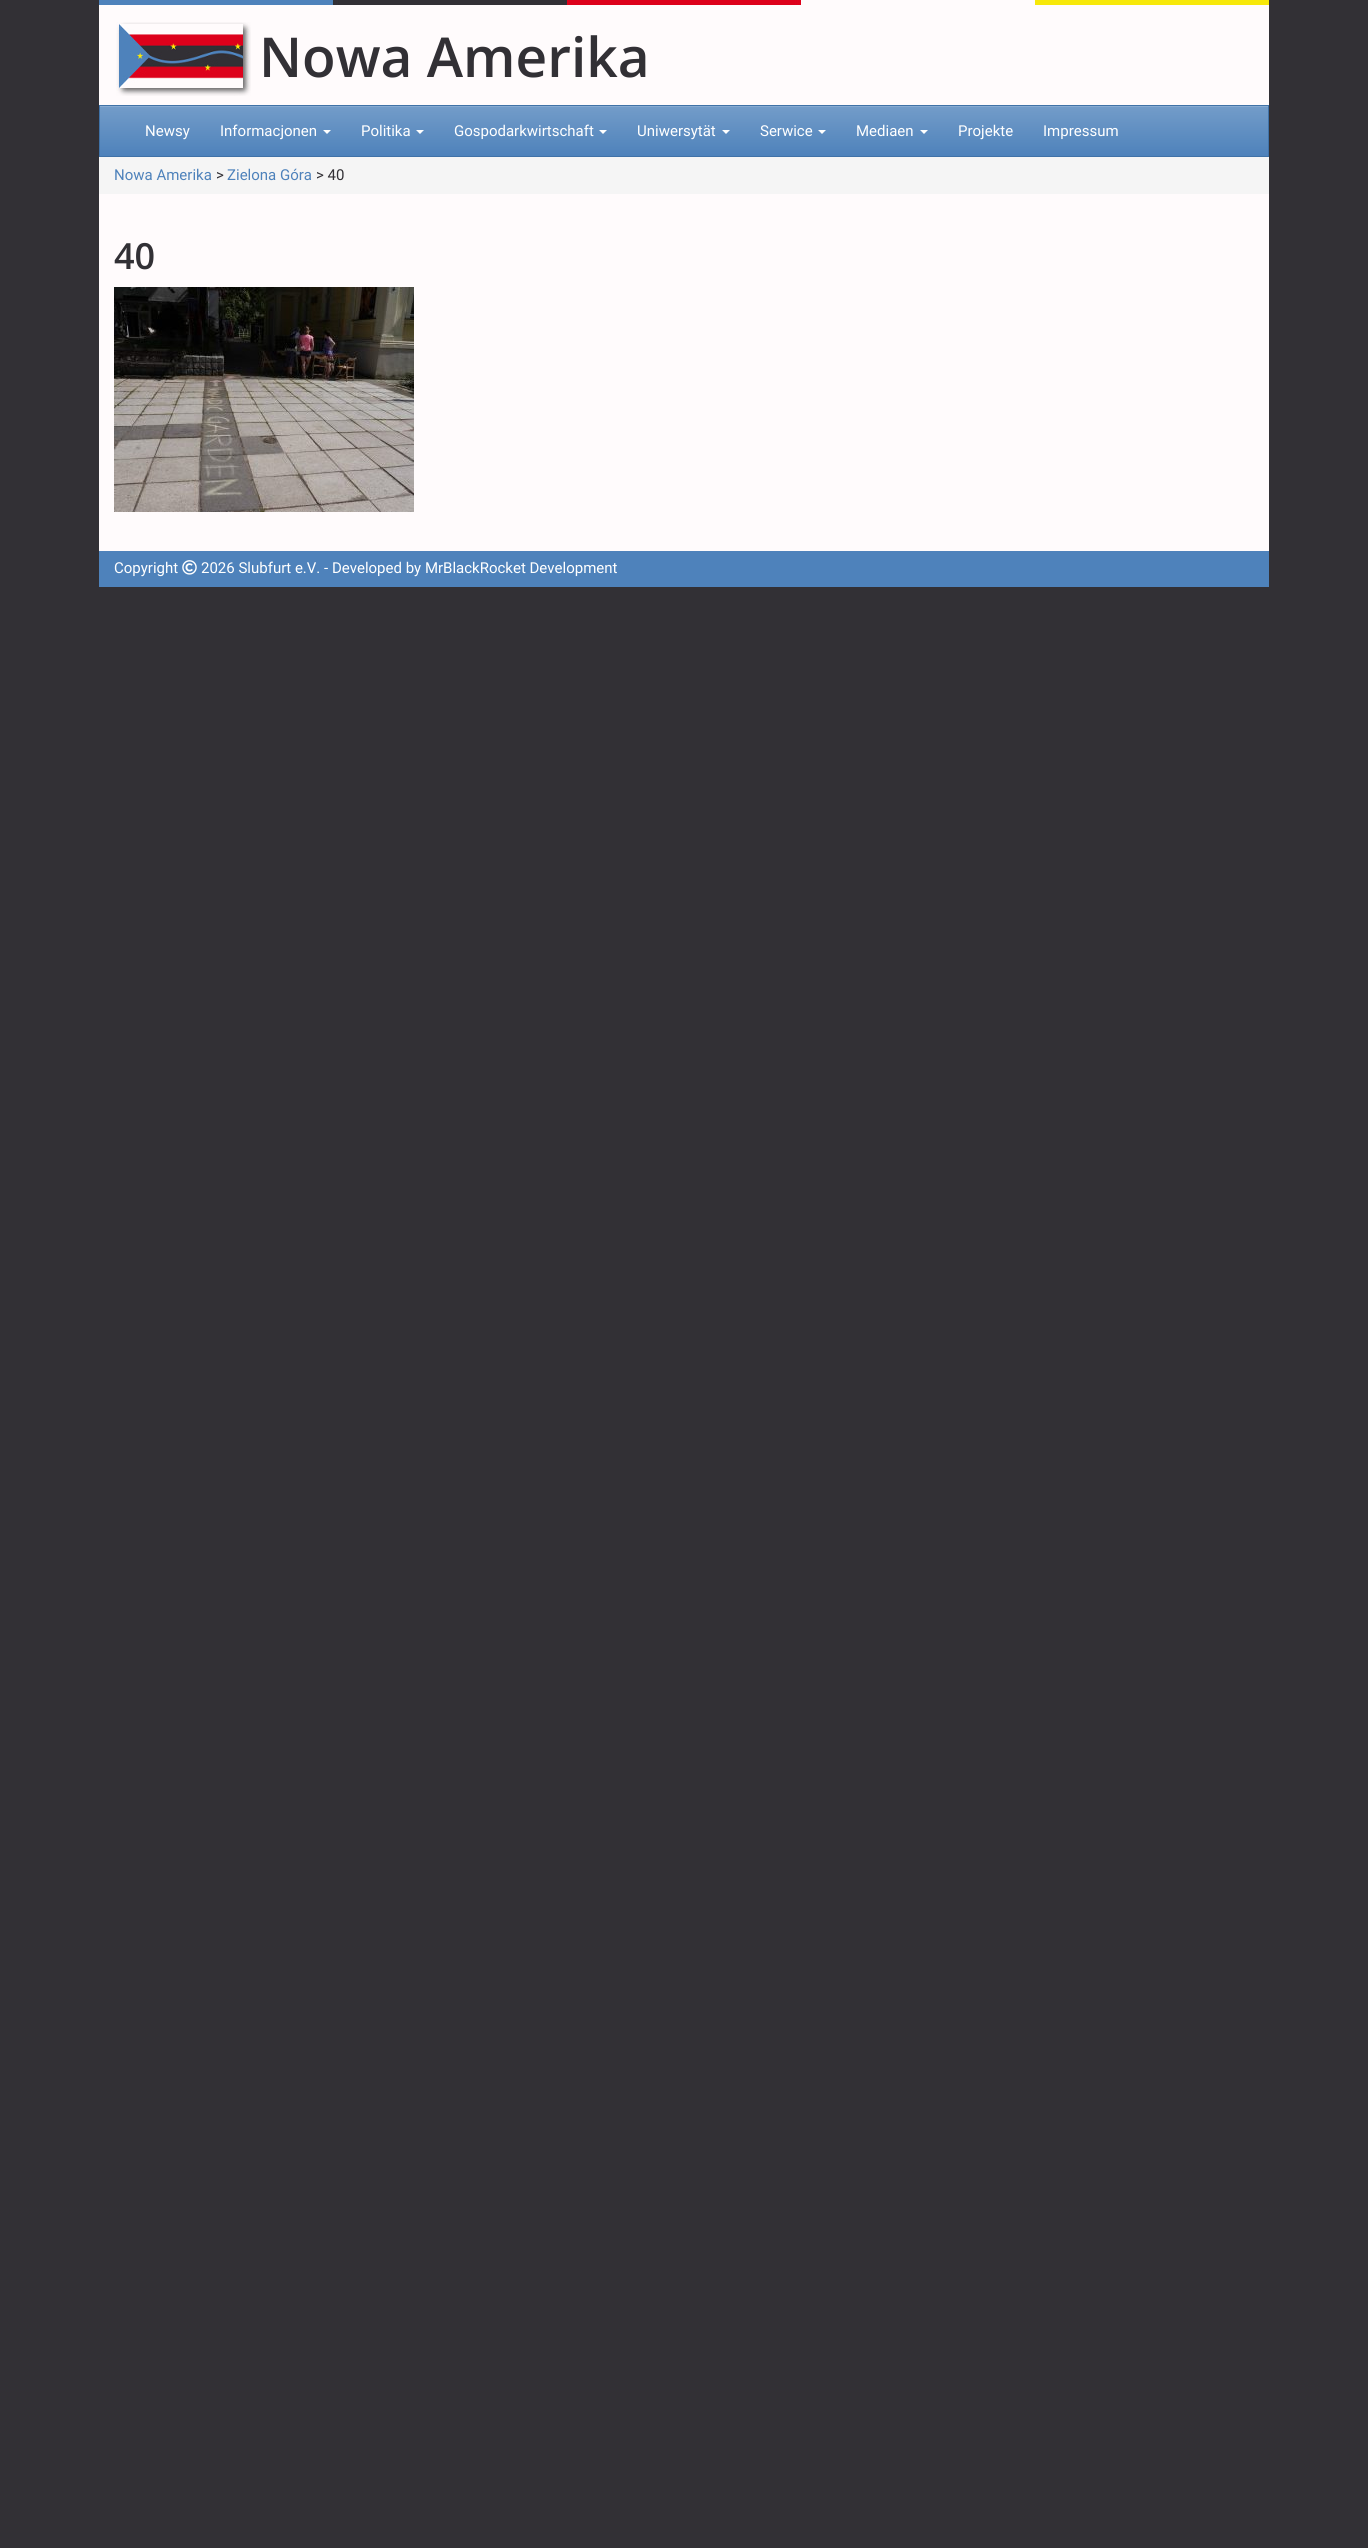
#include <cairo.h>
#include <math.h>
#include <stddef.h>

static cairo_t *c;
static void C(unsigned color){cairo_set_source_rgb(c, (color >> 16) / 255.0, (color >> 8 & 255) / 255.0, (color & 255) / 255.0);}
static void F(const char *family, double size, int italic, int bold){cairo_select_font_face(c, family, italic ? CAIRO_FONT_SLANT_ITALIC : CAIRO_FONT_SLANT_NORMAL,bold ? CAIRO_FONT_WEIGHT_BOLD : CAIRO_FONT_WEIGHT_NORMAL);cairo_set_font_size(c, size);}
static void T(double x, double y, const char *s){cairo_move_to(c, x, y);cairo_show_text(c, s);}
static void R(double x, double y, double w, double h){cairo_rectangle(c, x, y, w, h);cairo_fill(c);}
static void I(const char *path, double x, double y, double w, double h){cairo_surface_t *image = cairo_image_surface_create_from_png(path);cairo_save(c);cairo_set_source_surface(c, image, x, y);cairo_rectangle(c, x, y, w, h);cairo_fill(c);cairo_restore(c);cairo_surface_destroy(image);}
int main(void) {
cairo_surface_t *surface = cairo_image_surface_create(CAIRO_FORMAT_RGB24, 1368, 2548);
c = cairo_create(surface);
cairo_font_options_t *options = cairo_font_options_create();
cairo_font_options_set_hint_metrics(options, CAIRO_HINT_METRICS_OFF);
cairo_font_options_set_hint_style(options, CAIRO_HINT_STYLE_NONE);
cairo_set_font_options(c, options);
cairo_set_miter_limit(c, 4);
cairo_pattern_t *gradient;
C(0x323035);
cairo_paint(c);
C(0xfffbfc);
R(99,194,1170,357);
I("1.png",99,0,1170,5);
R(99,5,1170,100);
I("2.png",116,22,135,74);
F("Open Sans SemiBold",55,0,0);
C(0x323035);
T(259,77,"Nowa Amerika");
gradient = cairo_pattern_create_linear(684,106,684,156);
cairo_pattern_add_color_stop_rgba(gradient,0,0.451,0.612,0.788,1);
cairo_pattern_add_color_stop_rgba(gradient,1,0.306,0.51,0.733,1);
cairo_set_source(c,gradient);
cairo_pattern_destroy(gradient);
R(100,107,1168,49);
C(0x88abd1);
R(100,106,1168,1);
cairo_rectangle(c,99.5,105.5,1169,51);
C(0x4072a7);
cairo_set_line_width(c,1);
cairo_stroke(c);
F("Roboto",15,0,0);
C(0xffffff);
T(145,136,"Newsy");
T(220,136,"Informacjonen");
cairo_new_path(c);
cairo_move_to(c,323,130);
cairo_line_to(c,331,130);
cairo_line_to(c,327,134);
cairo_close_path(c);
cairo_fill(c);
T(361,136,"Politika");
cairo_new_path(c);
cairo_move_to(c,416,130);
cairo_line_to(c,424,130);
cairo_line_to(c,420,134);
cairo_close_path(c);
cairo_fill(c);
T(454,136,"Gospodarkwirtschaft");
cairo_new_path(c);
cairo_move_to(c,599,130);
cairo_line_to(c,607,130);
cairo_line_to(c,603,134);
cairo_close_path(c);
cairo_fill(c);
T(637,136,"Uniwersytät");
cairo_new_path(c);
cairo_move_to(c,722,130);
cairo_line_to(c,730,130);
cairo_line_to(c,726,134);
cairo_close_path(c);
cairo_fill(c);
T(760,136,"Serwice");
cairo_new_path(c);
cairo_move_to(c,818,130);
cairo_line_to(c,826,130);
cairo_line_to(c,822,134);
cairo_close_path(c);
cairo_fill(c);
T(856,136,"Mediaen");
cairo_new_path(c);
cairo_move_to(c,920,130);
cairo_line_to(c,928,130);
cairo_line_to(c,924,134);
cairo_close_path(c);
cairo_fill(c);
T(958,136,"Projekte");
T(1043,136,"Impressum");
C(0xf5f5f5);
R(99,157,1170,37);
C(0x4e82bb);
T(114,180,"Nowa Amerika");
C(0x323035);
T(216,180,">");
C(0x4e82bb);
T(227,180,"Zielona Góra");
C(0x323035);
T(316,180,"> 40");
F("Open Sans SemiBold",36,0,0);
T(114,269,"40");
I("3.png",114,287,300,225);
C(0x4e82bb);
R(99,551,1170,36);
F("Roboto",15,0,0);
C(0xffffff);
T(114,573,"Copyright");
I("4.png",182,560,15,15);
T(201,573,"2026 Slubfurt e.V. - Developed by MrBlackRocket Development");
cairo_surface_write_to_png(surface, "o.png");
cairo_font_options_destroy(options);
cairo_destroy(c);
cairo_surface_destroy(surface);
return 0;
}
